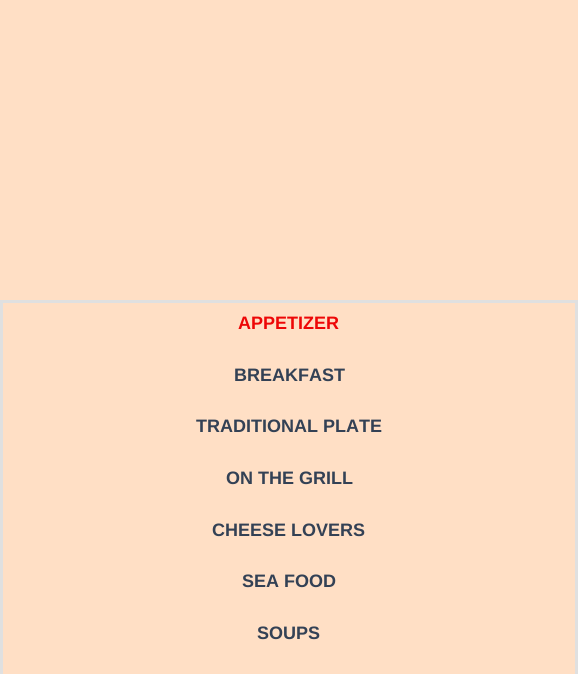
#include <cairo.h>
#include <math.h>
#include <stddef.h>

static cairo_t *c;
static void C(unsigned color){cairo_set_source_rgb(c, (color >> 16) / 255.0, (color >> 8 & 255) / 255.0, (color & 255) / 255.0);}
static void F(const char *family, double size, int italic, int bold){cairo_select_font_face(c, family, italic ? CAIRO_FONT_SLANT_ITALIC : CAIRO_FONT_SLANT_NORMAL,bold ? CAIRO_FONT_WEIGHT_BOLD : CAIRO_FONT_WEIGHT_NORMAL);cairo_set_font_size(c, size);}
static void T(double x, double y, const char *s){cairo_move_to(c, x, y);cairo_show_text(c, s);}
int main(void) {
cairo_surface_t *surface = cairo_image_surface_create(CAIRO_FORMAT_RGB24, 578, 674);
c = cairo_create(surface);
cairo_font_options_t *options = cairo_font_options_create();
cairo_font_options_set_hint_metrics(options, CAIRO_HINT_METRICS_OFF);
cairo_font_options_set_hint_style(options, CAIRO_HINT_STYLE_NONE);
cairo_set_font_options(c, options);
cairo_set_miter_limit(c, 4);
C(0xffdfc5);
cairo_paint(c);
cairo_rectangle(c,1.5,301.5,575,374);
C(0xe0e0e0);
cairo_set_line_width(c,3);
cairo_stroke(c);
F("Liberation Sans",18,0,1);
C(0xed0707);
T(238,329,"APPETIZER");
C(0x334155);
T(234,381,"BREAKFAST");
T(196,432,"TRADITIONAL PLATE");
T(226,484,"ON THE GRILL");
T(212,536,"CHEESE LOVERS");
T(242,587,"SEA FOOD");
T(257,639,"SOUPS");
cairo_surface_write_to_png(surface, "o.png");
cairo_font_options_destroy(options);
cairo_destroy(c);
cairo_surface_destroy(surface);
return 0;
}
